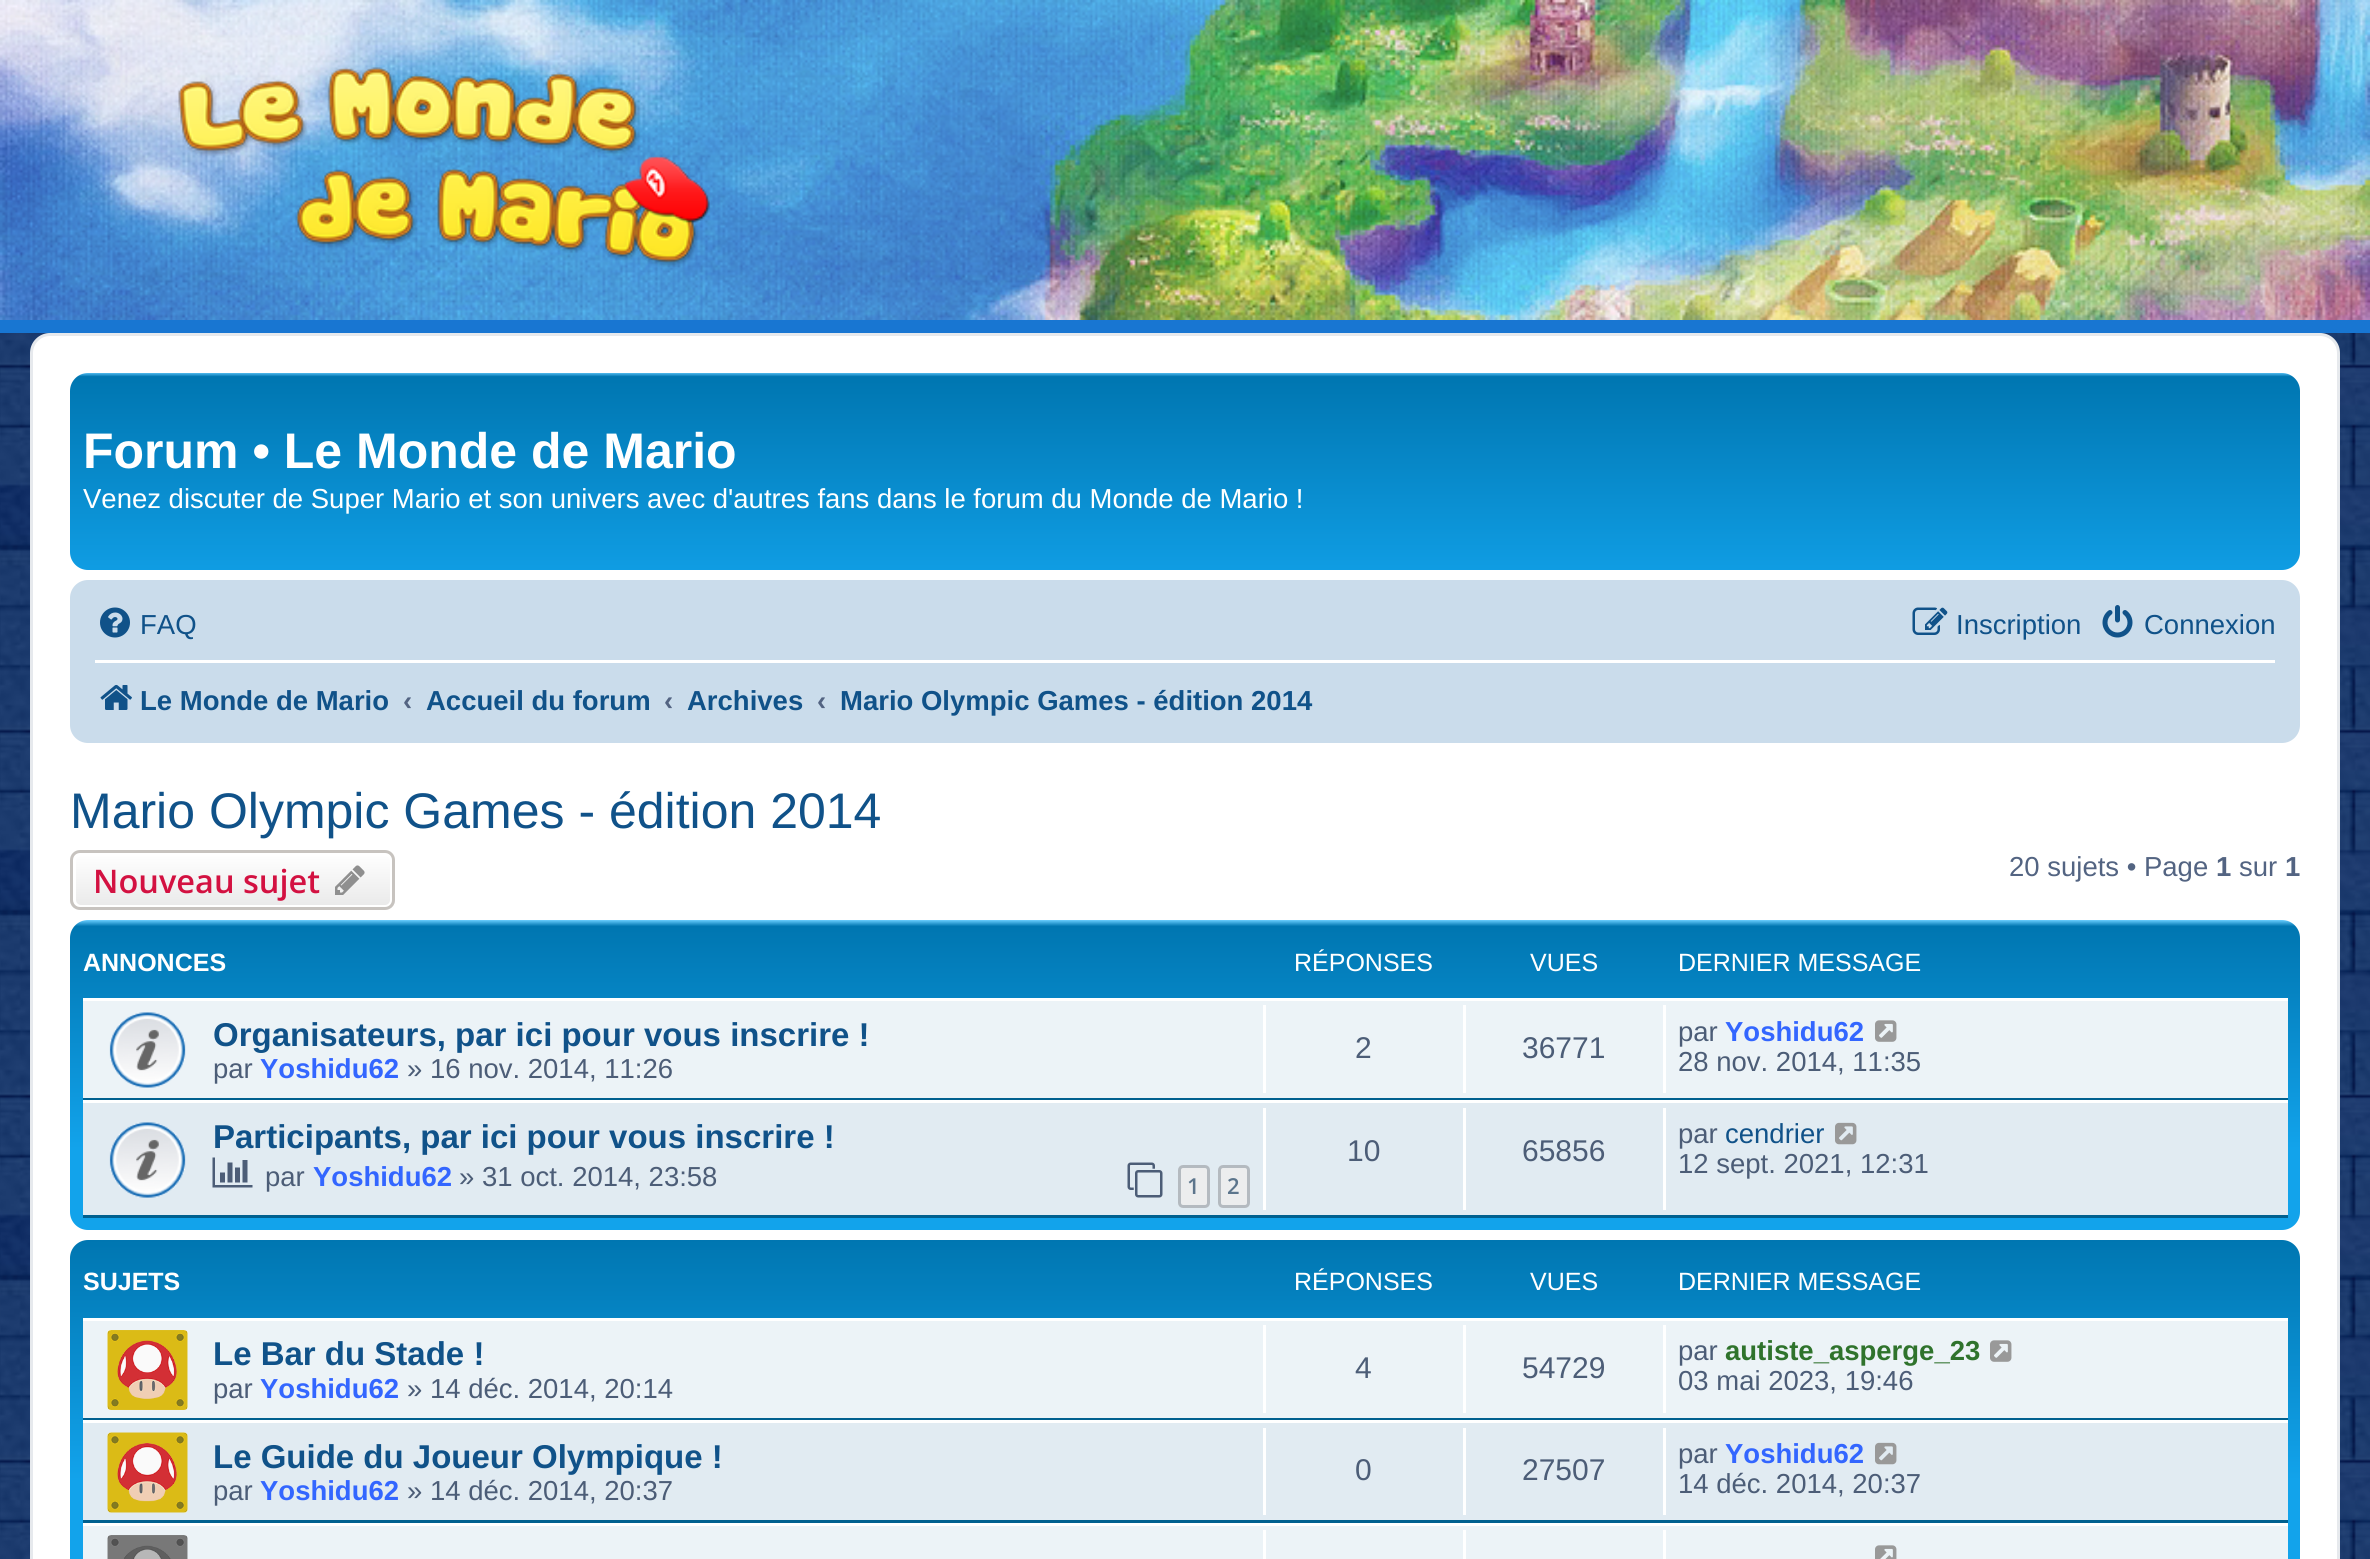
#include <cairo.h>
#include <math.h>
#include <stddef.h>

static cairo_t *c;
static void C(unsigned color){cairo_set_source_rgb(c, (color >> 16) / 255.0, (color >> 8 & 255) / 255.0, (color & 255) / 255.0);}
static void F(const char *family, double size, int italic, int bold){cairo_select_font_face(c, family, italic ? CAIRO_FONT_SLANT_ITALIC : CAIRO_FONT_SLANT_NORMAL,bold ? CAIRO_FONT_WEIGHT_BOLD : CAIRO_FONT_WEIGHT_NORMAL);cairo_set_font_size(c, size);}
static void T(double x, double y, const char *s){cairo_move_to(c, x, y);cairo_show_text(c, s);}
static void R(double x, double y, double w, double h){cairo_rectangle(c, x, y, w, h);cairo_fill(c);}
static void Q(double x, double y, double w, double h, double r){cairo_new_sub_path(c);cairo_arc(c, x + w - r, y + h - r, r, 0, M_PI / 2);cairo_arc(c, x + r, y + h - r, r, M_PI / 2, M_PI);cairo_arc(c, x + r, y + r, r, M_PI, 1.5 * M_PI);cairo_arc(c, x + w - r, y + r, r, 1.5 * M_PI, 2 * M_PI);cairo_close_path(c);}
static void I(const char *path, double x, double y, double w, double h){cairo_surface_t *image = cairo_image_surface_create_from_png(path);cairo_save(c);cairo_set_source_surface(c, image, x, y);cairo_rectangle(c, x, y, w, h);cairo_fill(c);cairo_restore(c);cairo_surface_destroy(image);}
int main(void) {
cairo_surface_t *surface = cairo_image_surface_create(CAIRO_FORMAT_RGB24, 2370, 1559);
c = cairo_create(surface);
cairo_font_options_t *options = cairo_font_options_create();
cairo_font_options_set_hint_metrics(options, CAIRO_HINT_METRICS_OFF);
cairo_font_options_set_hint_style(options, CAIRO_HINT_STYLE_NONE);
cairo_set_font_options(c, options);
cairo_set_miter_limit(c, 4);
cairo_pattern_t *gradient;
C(0xffffff);
cairo_paint(c);
I("1.png",0,333,2370,1226);
C(0x1876d2);
R(0,320,2370,13);
I("2.png",0,0,2370,320);
I("3.png",178,67,532,200);
C(0xffffff);
Q(31.5,334.5,2307,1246,18.5);
cairo_fill_preserve(c);
C(0xe6e9ed);
cairo_set_line_width(c,3);
cairo_stroke(c);
gradient = cairo_pattern_create_linear(1185,372,1185,602);
cairo_pattern_add_color_stop_rgba(gradient,0,0.416,0.808,1,1);
cairo_pattern_add_color_stop_rgba(gradient,.02,0,0.463,0.694,1);
cairo_pattern_add_color_stop_rgba(gradient,1,0.071,0.639,0.922,1);
cairo_set_source(c,gradient);
cairo_pattern_destroy(gradient);
Q(70,373,2230,197,18);
cairo_fill(c);
F("Liberation Sans",50,0,1);
C(0xffffff);
T(83,468,"Forum • Le Monde de Mario");
F("Liberation Sans",27.5,0,0);
T(83,508,"Venez discuter de Super Mario et son univers avec d'autres fans dans le forum du Monde de Mario !");
C(0xcadceb);
Q(70,580,2230,163,18);
cairo_fill(c);
I("4.png",100,607,30,31);
C(0x105289);
T(140,634,"FAQ");
I("5.png",1912,607,36,28);
T(1956,634,"Inscription");
I("6.png",2102,605,31,33);
T(2144,634,"Connexion");
C(0xffffff);
R(95,660,2180,3);
I("7.png",100,684,32,26);
F("Liberation Sans",27.5,0,1);
C(0x105289);
T(140,710,"Le Monde de Mario");
C(0x536482);
T(403,710,"‹");
C(0x105289);
T(426,710,"Accueil du forum");
C(0x536482);
T(664,710,"‹");
C(0x105289);
T(687,710,"Archives");
C(0x536482);
T(817,710,"‹");
C(0x105289);
T(840,710,"Mario Olympic Games - édition 2014");
F("Liberation Sans",50,0,0);
T(70,828,"Mario Olympic Games - édition 2014");
cairo_save(c);
Q(70,850,325,60,10);
cairo_clip(c);
gradient = cairo_pattern_create_linear(233,853,233,908);
cairo_pattern_add_color_stop_rgba(gradient,0,1,1,1,1);
cairo_pattern_add_color_stop_rgba(gradient,1,0.914,0.914,0.914,1);
cairo_set_source(c,gradient);
cairo_pattern_destroy(gradient);
R(70,853,325,55);
cairo_restore(c);
Q(74.5,854.5,317,52,6.5);
C(0xffffff);
cairo_stroke(c);
Q(71.5,851.5,322,57,8.5);
C(0xc7c3bf);
cairo_stroke(c);
F("Open Sans SemiBold",32.5,0,0);
C(0xd31141);
T(93,893,"Nouveau sujet");
I("8.png",335,865,30,30);
F("Liberation Sans",27.5,0,0);
C(0x536482);
T(2009,876,"20 sujets • Page");
F("Liberation Sans",27.5,0,1);
T(2216,876,"1");
F("Liberation Sans",27.5,0,0);
T(2239,876,"sur");
F("Liberation Sans",27.5,0,1);
T(2285,876,"1");
gradient = cairo_pattern_create_linear(1185,920,1185,1230);
cairo_pattern_add_color_stop_rgba(gradient,0,0.416,0.808,1,1);
cairo_pattern_add_color_stop_rgba(gradient,.02,0,0.463,0.694,1);
cairo_pattern_add_color_stop_rgba(gradient,.74,0.071,0.639,0.922,1);
cairo_pattern_add_color_stop_rgba(gradient,1,0.071,0.639,0.922,1);
cairo_set_source(c,gradient);
cairo_pattern_destroy(gradient);
Q(70,920,2230,310,18);
cairo_fill(c);
F("Liberation Sans",25,0,1);
C(0xffffff);
T(83,971,"ANNONCES");
F("Liberation Sans",25,0,0);
T(1294,971,"RÉPONSES");
T(1530,971,"VUES");
T(1678,971,"DERNIER MESSAGE");
C(0xecf3f7);
R(83,1001,2205,97);
C(0xffffff);
R(83,998,2205,3);
C(0x00608f);
R(83,1098,2205,2);
I("9.png",109,1012,77,76);
F("Liberation Sans",33,0,1);
C(0x105289);
T(213,1046,"Organisateurs, par ici pour vous inscrire !");
F("Liberation Sans",27.5,0,0);
C(0x4c5d77);
T(213,1078,"par");
F("Liberation Sans",27.5,0,1);
C(0x3366ff);
T(260,1078,"Yoshidu62");
F("Liberation Sans",27.5,0,0);
C(0x4c5d77);
T(407,1078,"» 16 nov. 2014, 11:26");
C(0xffffff);
R(1263,1005,3,88);
F("Liberation Sans",30,0,0);
C(0x4c5d77);
T(1355,1058,"2");
C(0xffffff);
R(1463,1005,3,88);
C(0x4c5d77);
T(1522,1058,"36771");
C(0xffffff);
R(1663,1005,3,88);
F("Liberation Sans",27.5,0,0);
C(0x4c5d77);
T(1678,1041,"par");
F("Liberation Sans",27.5,0,1);
C(0x3366ff);
T(1725,1041,"Yoshidu62");
I("10.png",1875,1020,22,22);
F("Liberation Sans",27.5,0,0);
C(0x4c5d77);
T(1678,1071,"28 nov. 2014, 11:35");
C(0xe1ebf2);
R(83,1103,2205,112);
C(0xffffff);
R(83,1100,2205,3);
C(0x00608f);
R(83,1215,2205,3);
I("11.png",109,1122,77,76);
F("Liberation Sans",33,0,1);
C(0x105289);
T(213,1148,"Participants, par ici pour vous inscrire !");
I("12.png",212,1157,41,31);
F("Liberation Sans",27.5,0,0);
C(0x4c5d77);
T(265,1186,"par");
F("Liberation Sans",27.5,0,1);
C(0x3366ff);
T(313,1186,"Yoshidu62");
F("Liberation Sans",27.5,0,0);
C(0x4c5d77);
T(459,1186,"» 31 oct. 2014, 23:58");
I("13.png",1127,1162,36,36);
C(0xecedee);
Q(1179.5,1166.5,29,40,3.5);
cairo_fill_preserve(c);
C(0xb4bac0);
cairo_stroke(c);
F("Open Sans SemiBold",22,0,0);
C(0x5c758c);
T(1187,1194,"1");
C(0xecedee);
Q(1219.5,1166.5,29,40,3.5);
cairo_fill_preserve(c);
C(0xb4bac0);
cairo_stroke(c);
C(0x5c758c);
T(1227,1194,"2");
C(0xffffff);
R(1263,1108,3,102);
F("Liberation Sans",30,0,0);
C(0x4c5d77);
T(1347,1161,"10");
C(0xffffff);
R(1463,1108,3,102);
C(0x4c5d77);
T(1522,1161,"65856");
C(0xffffff);
R(1663,1108,3,102);
F("Liberation Sans",27.5,0,0);
C(0x4c5d77);
T(1678,1143,"par");
C(0x105289);
T(1725,1143,"cendrier");
I("14.png",1835,1122,22,23);
C(0x4c5d77);
T(1678,1173,"12 sept. 2021, 12:31");
gradient = cairo_pattern_create_linear(1185,1240,1185,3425);
cairo_pattern_add_color_stop_rgba(gradient,0,0.416,0.808,1,1);
cairo_pattern_add_color_stop_rgba(gradient,0,0,0.463,0.694,1);
cairo_pattern_add_color_stop_rgba(gradient,.11,0.071,0.639,0.922,1);
cairo_pattern_add_color_stop_rgba(gradient,1,0.071,0.639,0.922,1);
cairo_set_source(c,gradient);
cairo_pattern_destroy(gradient);
Q(70,1240,2230,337,18);
cairo_fill(c);
F("Liberation Sans",25,0,1);
C(0xffffff);
T(83,1290,"SUJETS");
F("Liberation Sans",25,0,0);
T(1294,1290,"RÉPONSES");
T(1530,1290,"VUES");
T(1678,1290,"DERNIER MESSAGE");
C(0xecf3f7);
R(83,1321,2205,97);
C(0xffffff);
R(83,1318,2205,3);
C(0x00608f);
R(83,1418,2205,2);
I("15.png",107,1330,81,80);
F("Liberation Sans",33,0,1);
C(0x105289);
T(213,1365,"Le Bar du Stade !");
F("Liberation Sans",27.5,0,0);
C(0x4c5d77);
T(213,1398,"par");
F("Liberation Sans",27.5,0,1);
C(0x3366ff);
T(260,1398,"Yoshidu62");
F("Liberation Sans",27.5,0,0);
C(0x4c5d77);
T(407,1398,"» 14 déc. 2014, 20:14");
C(0xffffff);
R(1263,1325,3,88);
F("Liberation Sans",30,0,0);
C(0x4c5d77);
T(1355,1378,"4");
C(0xffffff);
R(1463,1325,3,88);
C(0x4c5d77);
T(1522,1378,"54729");
C(0xffffff);
R(1663,1325,3,88);
F("Liberation Sans",27.5,0,0);
C(0x4c5d77);
T(1678,1360,"par");
F("Liberation Sans",27.5,0,1);
C(0x2f732c);
T(1725,1360,"autiste_asperge_23");
I("10.png",1990,1340,22,22);
F("Liberation Sans",27.5,0,0);
C(0x4c5d77);
T(1678,1390,"03 mai 2023, 19:46");
C(0xe1ebf2);
R(83,1423,2205,97);
C(0xffffff);
R(83,1420,2205,3);
C(0x00608f);
R(83,1520,2205,3);
I("16.png",107,1432,81,81);
F("Liberation Sans",33,0,1);
C(0x105289);
T(213,1468,"Le Guide du Joueur Olympique !");
F("Liberation Sans",27.5,0,0);
C(0x4c5d77);
T(213,1500,"par");
F("Liberation Sans",27.5,0,1);
C(0x3366ff);
T(260,1500,"Yoshidu62");
F("Liberation Sans",27.5,0,0);
C(0x4c5d77);
T(407,1500,"» 14 déc. 2014, 20:37");
C(0xffffff);
R(1263,1428,3,87);
F("Liberation Sans",30,0,0);
C(0x4c5d77);
T(1355,1480,"0");
C(0xffffff);
R(1463,1428,3,87);
C(0x4c5d77);
T(1522,1480,"27507");
C(0xffffff);
R(1663,1428,3,87);
F("Liberation Sans",27.5,0,0);
C(0x4c5d77);
T(1678,1463,"par");
F("Liberation Sans",27.5,0,1);
C(0x3366ff);
T(1725,1463,"Yoshidu62");
I("14.png",1875,1442,22,23);
F("Liberation Sans",27.5,0,0);
C(0x4c5d77);
T(1678,1493,"14 déc. 2014, 20:37");
C(0xecf3f7);
R(83,1526,2205,33);
C(0xffffff);
R(83,1523,2205,3);
I("17.png",107,1535,81,24);
R(1263,1530,3,29);
R(1463,1530,3,29);
R(1663,1530,3,29);
I("18.png",1875,1545,22,14);
cairo_surface_write_to_png(surface, "o.png");
cairo_font_options_destroy(options);
cairo_destroy(c);
cairo_surface_destroy(surface);
return 0;
}
